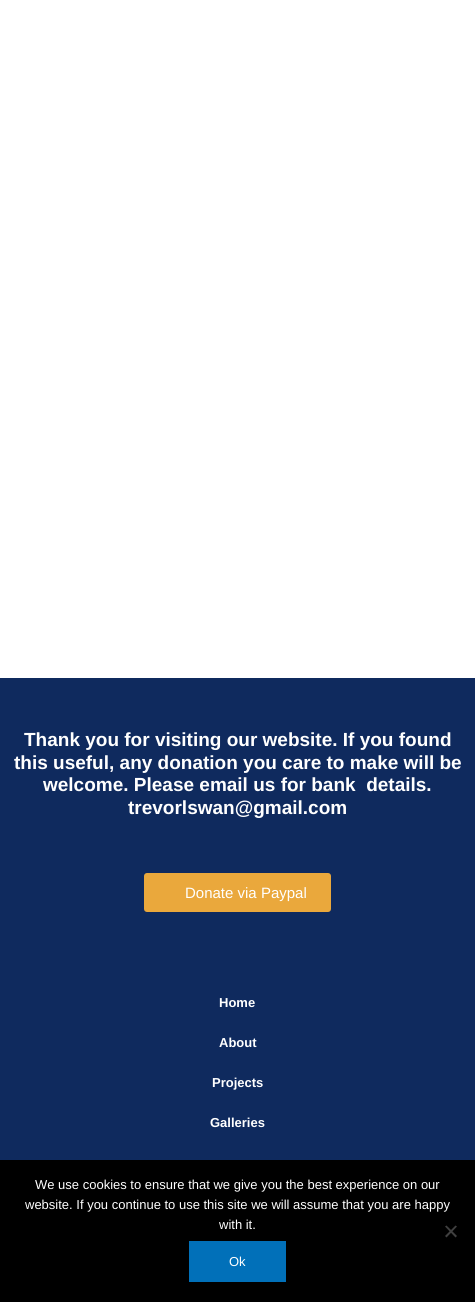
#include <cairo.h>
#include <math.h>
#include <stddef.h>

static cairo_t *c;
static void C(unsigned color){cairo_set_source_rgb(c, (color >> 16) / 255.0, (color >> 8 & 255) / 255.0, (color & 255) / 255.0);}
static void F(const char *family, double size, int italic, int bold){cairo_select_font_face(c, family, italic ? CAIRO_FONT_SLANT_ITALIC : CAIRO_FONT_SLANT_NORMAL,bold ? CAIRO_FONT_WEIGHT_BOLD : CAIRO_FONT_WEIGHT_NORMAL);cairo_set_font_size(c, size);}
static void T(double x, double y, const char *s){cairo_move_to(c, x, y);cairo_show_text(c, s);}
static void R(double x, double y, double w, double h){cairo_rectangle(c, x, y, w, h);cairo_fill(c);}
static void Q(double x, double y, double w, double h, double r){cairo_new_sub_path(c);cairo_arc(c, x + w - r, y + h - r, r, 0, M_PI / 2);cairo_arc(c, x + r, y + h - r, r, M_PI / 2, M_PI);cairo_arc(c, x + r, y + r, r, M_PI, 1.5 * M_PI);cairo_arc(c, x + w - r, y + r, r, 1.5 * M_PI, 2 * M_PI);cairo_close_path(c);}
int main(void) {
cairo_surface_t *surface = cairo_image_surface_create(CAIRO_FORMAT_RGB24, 475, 1302);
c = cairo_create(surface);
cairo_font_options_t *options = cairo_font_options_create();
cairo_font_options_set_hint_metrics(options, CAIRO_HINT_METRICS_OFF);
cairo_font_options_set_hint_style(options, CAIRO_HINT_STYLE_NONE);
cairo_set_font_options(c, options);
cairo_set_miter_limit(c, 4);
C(0xffffff);
cairo_paint(c);
C(0x0f2a5e);
R(0,678,475,482);
F("Liberation Sans",19,0,1);
C(0xffffff);
T(24,746,"Thank you for visiting our website. If you found");
T(14,769,"this useful, any donation you care to make will be");
T(43,791,"welcome. Please email us for bank  details.");
T(128,814,"trevorlswan@gmail.com");
C(0xeaa83c);
Q(144,873,187,39,3);
cairo_fill(c);
F("Liberation Sans",15,0,0);
C(0xffffff);
T(185,898,"Donate via Paypal");
F("Liberation Sans",13,0,1);
T(219,1007,"Home");
T(219,1047,"About");
T(212,1087,"Projects");
T(210,1127,"Galleries");
C(0x000000);
R(0,1160,475,142);
F("Liberation Sans",13,0,0);
C(0xffffff);
T(35,1189,"We use cookies to ensure that we give you the best experience on our");
T(25,1209,"website. If you continue to use this site we will assume that you are happy");
T(219,1229,"with it.");
C(0x404040);
cairo_new_path(c);
cairo_move_to(c,455.5,1225.5);
cairo_line_to(c,457,1226.5);
cairo_line_to(c,446.5,1237.5);
cairo_line_to(c,445,1236);
cairo_close_path(c);
cairo_fill(c);
cairo_new_path(c);
cairo_move_to(c,445,1226.5);
cairo_line_to(c,446.5,1225.5);
cairo_line_to(c,457,1236);
cairo_line_to(c,455.5,1237.5);
cairo_close_path(c);
cairo_fill(c);
C(0x0170b9);
R(189,1241,97,41);
C(0xffffff);
T(229,1266,"Ok");
cairo_surface_write_to_png(surface, "o.png");
cairo_font_options_destroy(options);
cairo_destroy(c);
cairo_surface_destroy(surface);
return 0;
}
